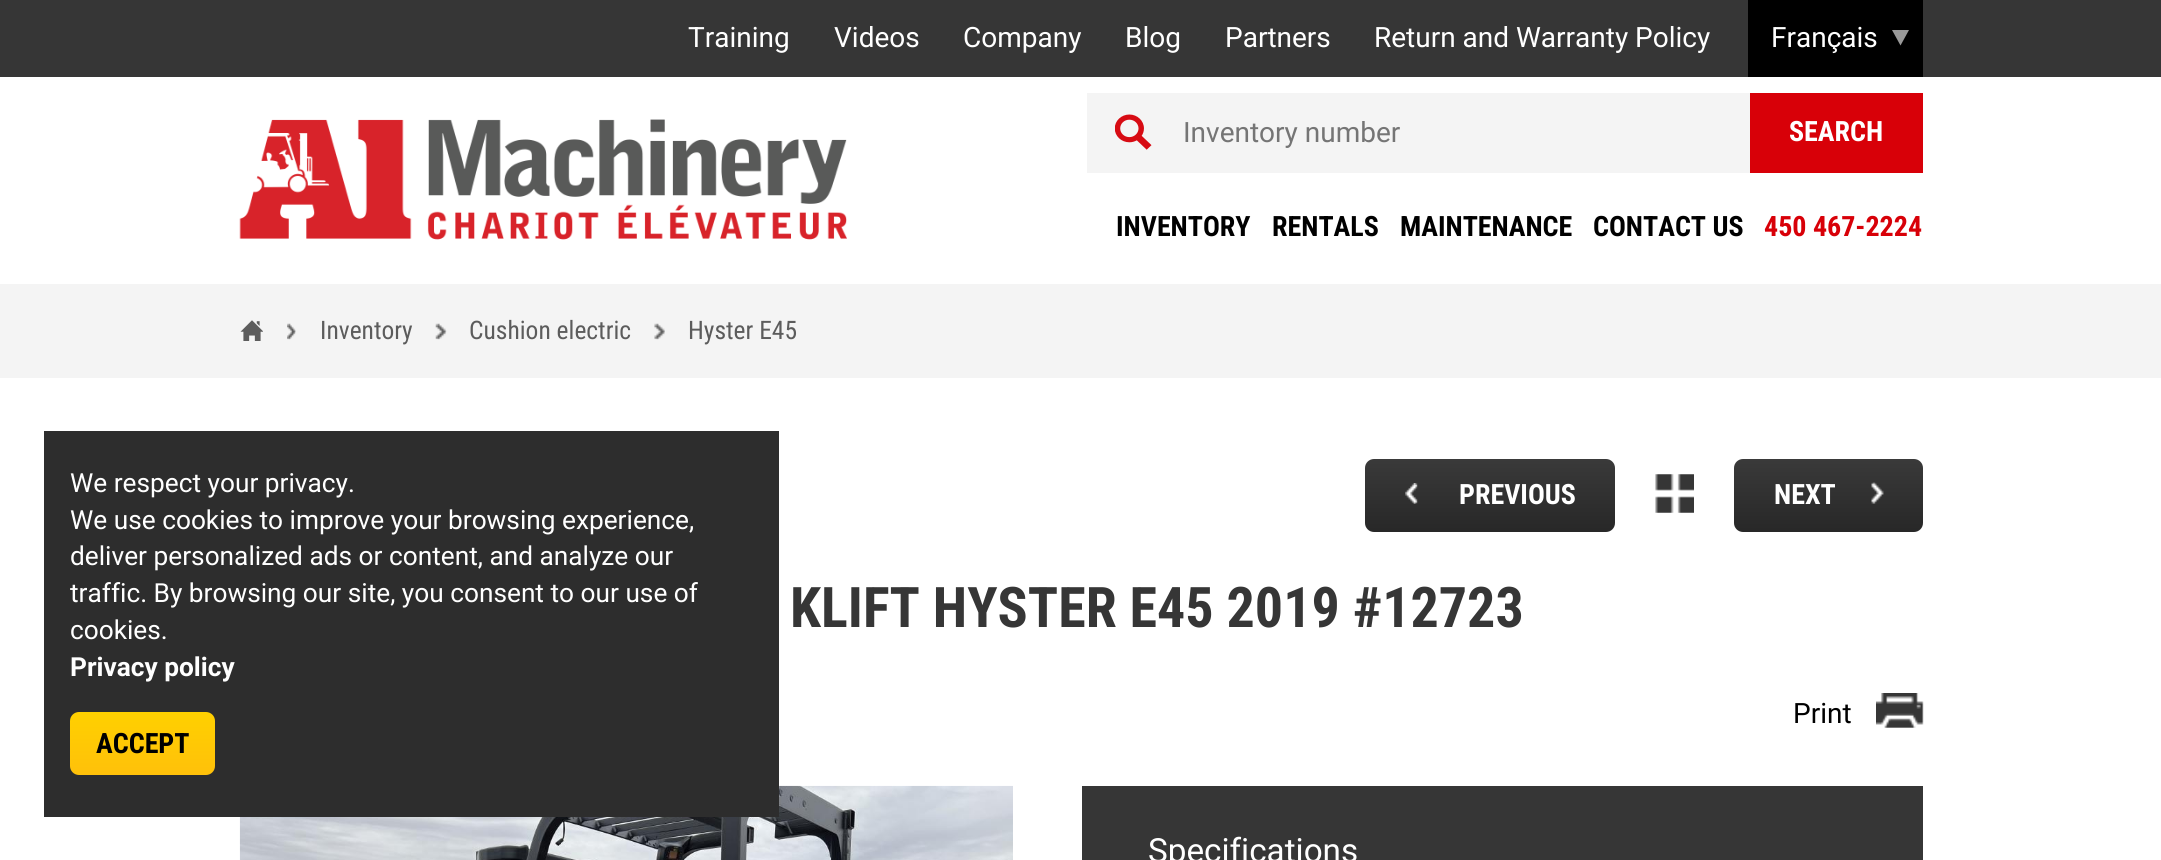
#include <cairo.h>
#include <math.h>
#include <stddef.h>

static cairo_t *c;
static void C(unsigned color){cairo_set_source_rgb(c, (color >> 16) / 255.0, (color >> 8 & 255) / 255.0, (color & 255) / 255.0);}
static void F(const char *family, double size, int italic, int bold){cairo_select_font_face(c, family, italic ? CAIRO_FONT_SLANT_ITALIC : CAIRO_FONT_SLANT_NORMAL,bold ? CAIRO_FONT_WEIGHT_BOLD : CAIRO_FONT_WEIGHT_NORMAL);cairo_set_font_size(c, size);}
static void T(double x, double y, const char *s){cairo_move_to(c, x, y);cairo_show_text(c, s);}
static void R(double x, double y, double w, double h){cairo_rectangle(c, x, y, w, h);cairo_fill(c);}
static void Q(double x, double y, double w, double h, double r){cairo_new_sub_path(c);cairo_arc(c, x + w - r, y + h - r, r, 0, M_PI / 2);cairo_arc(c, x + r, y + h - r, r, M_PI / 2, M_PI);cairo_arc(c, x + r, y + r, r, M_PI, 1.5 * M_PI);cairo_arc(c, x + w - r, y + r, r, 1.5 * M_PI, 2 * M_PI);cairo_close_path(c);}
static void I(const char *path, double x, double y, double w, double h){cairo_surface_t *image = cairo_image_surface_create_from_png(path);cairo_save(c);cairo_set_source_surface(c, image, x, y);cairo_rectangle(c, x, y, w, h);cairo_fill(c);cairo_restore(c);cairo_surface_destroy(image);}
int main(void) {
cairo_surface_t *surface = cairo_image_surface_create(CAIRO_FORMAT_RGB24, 2161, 860);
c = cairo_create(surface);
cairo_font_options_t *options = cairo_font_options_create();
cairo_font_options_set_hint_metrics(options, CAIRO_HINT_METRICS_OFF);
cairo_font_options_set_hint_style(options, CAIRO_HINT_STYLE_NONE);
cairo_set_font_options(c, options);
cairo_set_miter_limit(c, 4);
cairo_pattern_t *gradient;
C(0x363636);
cairo_paint(c);
F("Roboto",28,0,0);
C(0xffffff);
T(688,47,"Training");
T(834,47,"Videos");
T(963,47,"Company");
T(1125,47,"Blog");
T(1225,47,"Partners");
T(1374,47,"Return and Warranty Policy");
C(0x000000);
R(1748,0,175,77);
C(0xffffff);
T(1771,47,"Français");
C(0x999999);
cairo_new_path(c);
cairo_move_to(c,1892,30);
cairo_line_to(c,1909,30);
cairo_line_to(c,1900.5,45.5);
cairo_close_path(c);
cairo_fill(c);
C(0xffffff);
R(0,77,2161,207);
I("1.png",239,119,608,121);
C(0xf4f4f4);
R(1087,93,663,80);
I("2.png",1115,114,37,36);
C(0x757575);
T(1183,142,"Inventory number");
C(0xd80008);
R(1750,93,173,80);
F("Roboto Condensed",28,0,1);
C(0xffffff);
T(1789,141,"SEARCH");
C(0x000000);
T(1116,236,"INVENTORY");
T(1272,236,"RENTALS");
T(1400,236,"MAINTENANCE");
T(1593,236,"CONTACT US");
C(0xd80008);
T(1764,236,"450 467-2224");
C(0xffffff);
R(0,378,2161,482);
C(0xf4f4f4);
R(0,284,2161,94);
I("3.png",240,320,23,21);
I("4.png",287,323,9,17);
F("Roboto Condensed",25.5,0,0);
C(0x5c5c5c);
T(320,339,"Inventory");
I("5.png",435,323,12,17);
T(469,339,"Cushion electric");
I("6.png",654,323,11,17);
T(688,339,"Hyster E45");
gradient = cairo_pattern_create_linear(1490,459,1490,606);
cairo_pattern_add_color_stop_rgba(gradient,0,0.227,0.227,0.227,1);
cairo_pattern_add_color_stop_rgba(gradient,1,0.082,0.082,0.082,1);
cairo_set_source(c,gradient);
cairo_pattern_destroy(gradient);
Q(1365,459,250,73,9);
cairo_fill(c);
I("7.png",1405,483,13,21);
F("Roboto Condensed",28,0,1);
C(0xffffff);
T(1459,504,"PREVIOUS");
I("8.png",1655,474,39,39);
gradient = cairo_pattern_create_linear(1829,459,1829,606);
cairo_pattern_add_color_stop_rgba(gradient,0,0.227,0.227,0.227,1);
cairo_pattern_add_color_stop_rgba(gradient,1,0.082,0.082,0.082,1);
cairo_set_source(c,gradient);
cairo_pattern_destroy(gradient);
Q(1734,459,189,73,9);
cairo_fill(c);
C(0xffffff);
T(1774,504,"NEXT");
I("9.png",1871,482,13,22);
F("Roboto Condensed",56,0,1);
C(0x363636);
T(790,627,"KLIFT HYSTER E45 2019 #12723");
F("Roboto",28,0,0);
C(0x000000);
T(1793,723,"Print");
I("10.png",1876,693,48,35);
I("11.png",239,785,774,75);
C(0x363636);
R(1082,786,841,74);
F("Roboto",33.25,0,0);
C(0xffffff);
T(1148,862,"Specifications");
C(0x2d2d2d);
R(44,431,735,386);
F("Roboto",26.25,0,0);
C(0xffffff);
T(70,492,"We respect your privacy.");
T(70,529,"We use cookies to improve your browsing experience,");
T(70,565,"deliver personalized ads or content, and analyze our");
T(70,602,"traffic. By browsing our site, you consent to our use of");
T(70,639,"cookies.");
F("Roboto",26.25,0,1);
T(70,676,"Privacy policy");
gradient = cairo_pattern_create_linear(143,712,143,838);
cairo_pattern_add_color_stop_rgba(gradient,0,1,0.816,0,1);
cairo_pattern_add_color_stop_rgba(gradient,1,1,0.694,0.078,1);
cairo_set_source(c,gradient);
cairo_pattern_destroy(gradient);
Q(70,712,145,63,9);
cairo_fill(c);
F("Roboto Condensed",28,0,1);
C(0x000000);
T(96,753,"ACCEPT");
cairo_surface_write_to_png(surface, "o.png");
cairo_font_options_destroy(options);
cairo_destroy(c);
cairo_surface_destroy(surface);
return 0;
}
